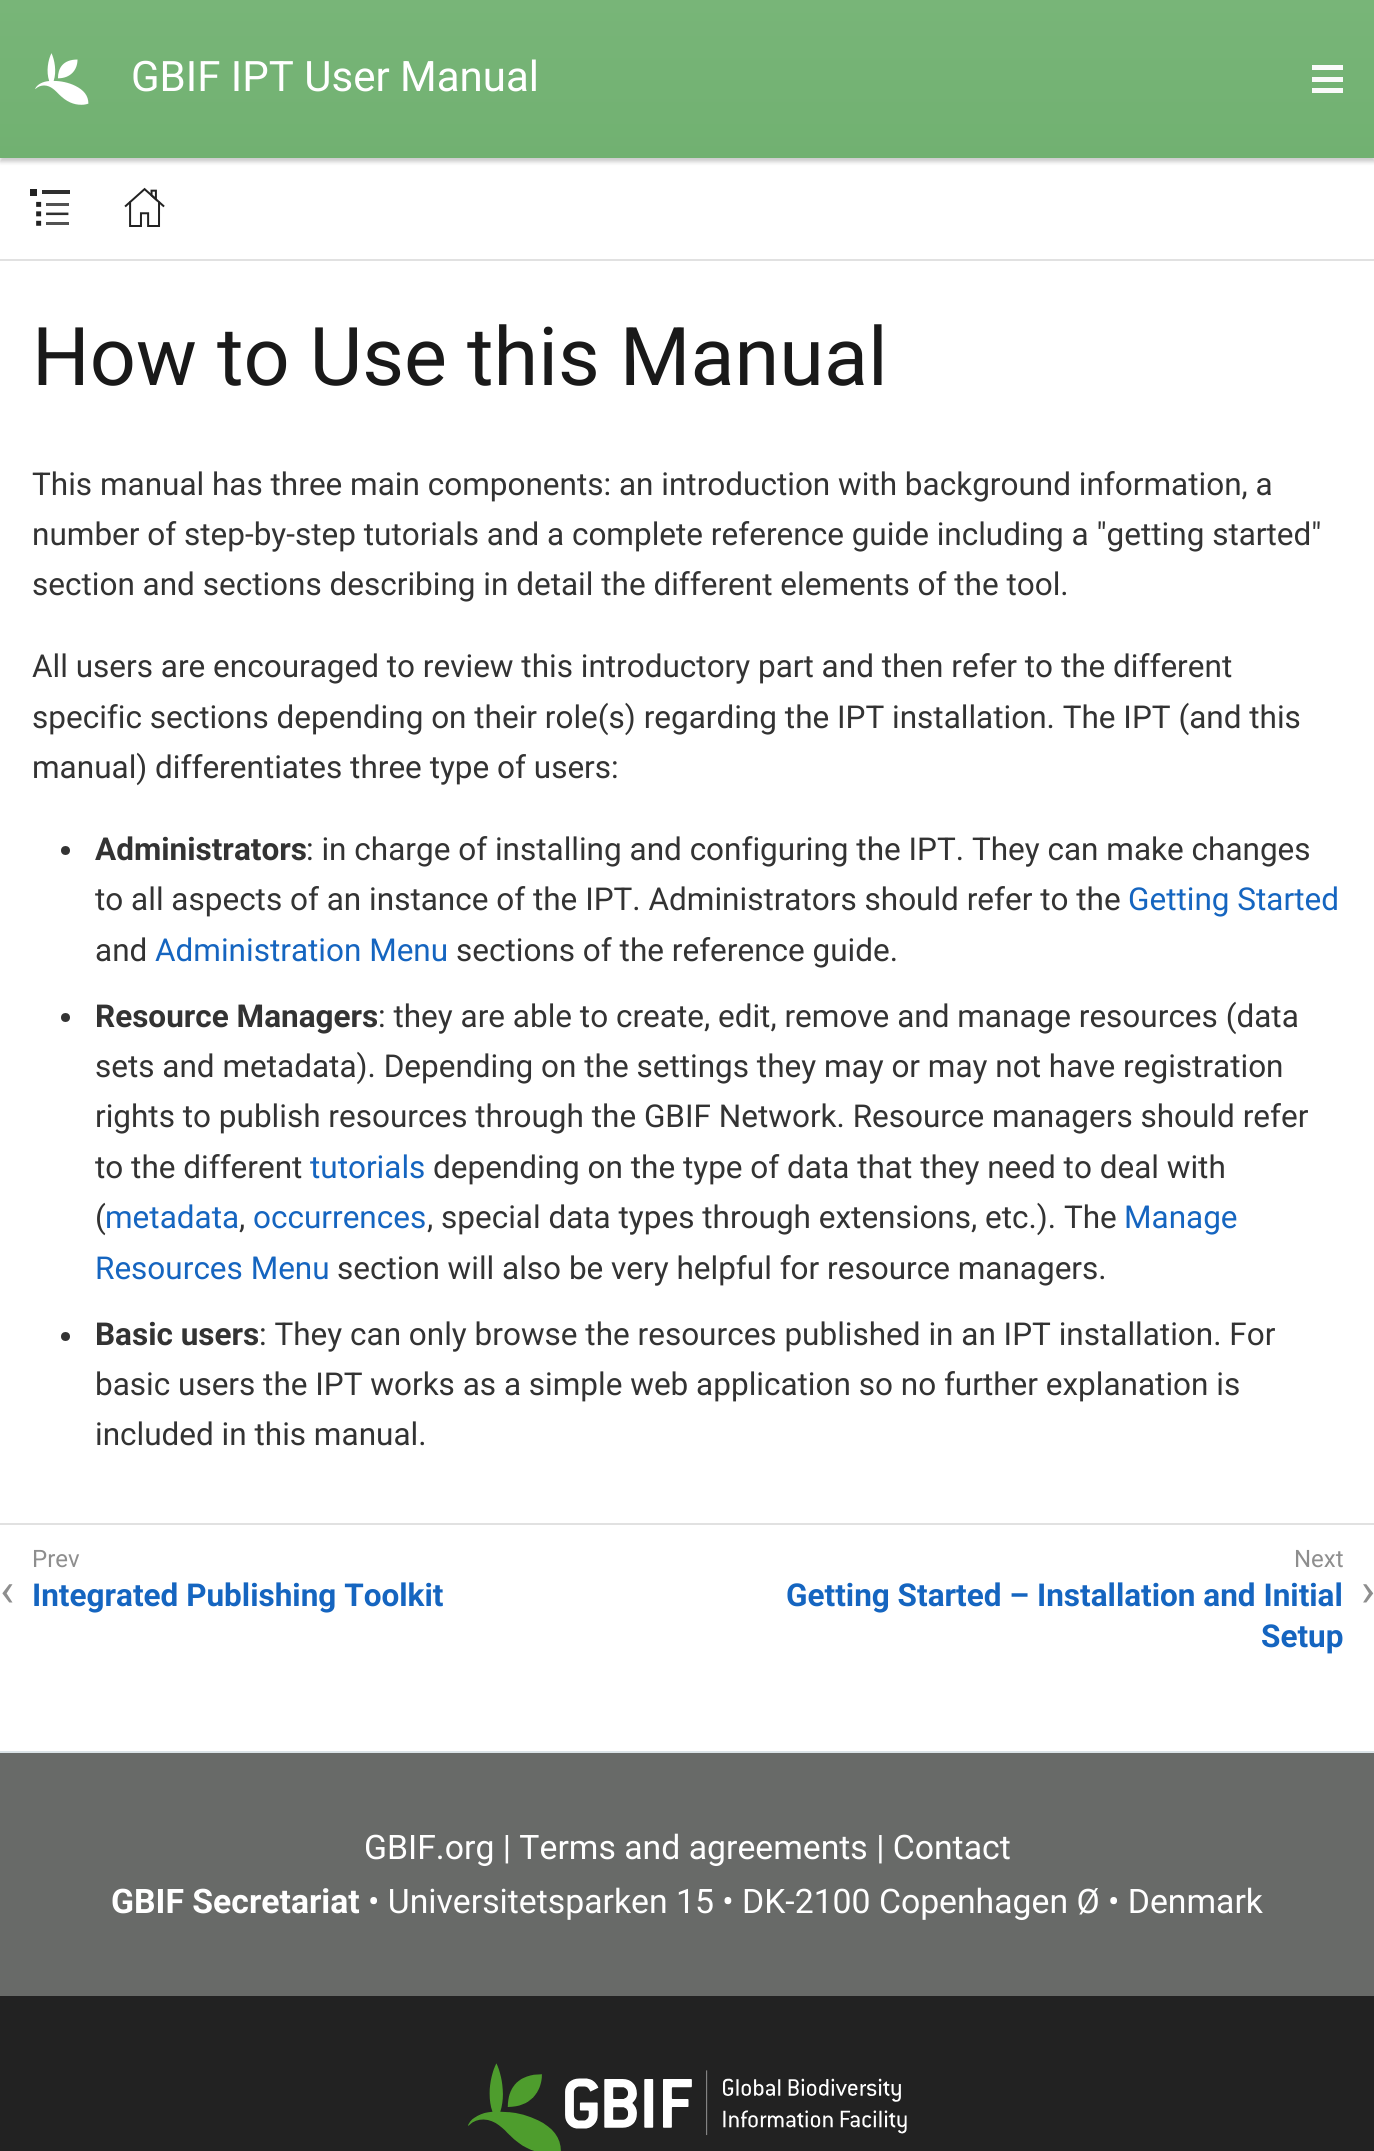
#include <cairo.h>
#include <math.h>
#include <stddef.h>

static cairo_t *c;
static void C(unsigned color){cairo_set_source_rgb(c, (color >> 16) / 255.0, (color >> 8 & 255) / 255.0, (color & 255) / 255.0);}
static void F(const char *family, double size, int italic, int bold){cairo_select_font_face(c, family, italic ? CAIRO_FONT_SLANT_ITALIC : CAIRO_FONT_SLANT_NORMAL,bold ? CAIRO_FONT_WEIGHT_BOLD : CAIRO_FONT_WEIGHT_NORMAL);cairo_set_font_size(c, size);}
static void T(double x, double y, const char *s){cairo_move_to(c, x, y);cairo_show_text(c, s);}
static void R(double x, double y, double w, double h){cairo_rectangle(c, x, y, w, h);cairo_fill(c);}
static void Q(double x, double y, double w, double h, double r){cairo_new_sub_path(c);cairo_arc(c, x + w - r, y + h - r, r, 0, M_PI / 2);cairo_arc(c, x + r, y + h - r, r, M_PI / 2, M_PI);cairo_arc(c, x + r, y + r, r, M_PI, 1.5 * M_PI);cairo_arc(c, x + w - r, y + r, r, 1.5 * M_PI, 2 * M_PI);cairo_close_path(c);}
static void S(double x, double y, double w, double h, double r, double blur, double alpha){cairo_push_group_with_content(c, CAIRO_CONTENT_ALPHA);cairo_set_operator(c, CAIRO_OPERATOR_SOURCE);for (int i = 15; i >= -15 && fmin(w, h) + blur * i / 3 > 0; i -= 2) {double e = blur * i / 6;cairo_set_source_rgba(c, 0, 0, 0, alpha * erfc((i - 1) / 8.5) / 2);Q(x - e, y - e, w + 2 * e, h + 2 * e, fmax(0, fmin(r + e + blur * .6, fmin(w, h) / 2 + e)));cairo_fill(c);}cairo_pattern_t *soft = cairo_pop_group(c);cairo_mask(c, soft);cairo_pattern_destroy(soft);}
static void I(const char *path, double x, double y, double w, double h){cairo_surface_t *image = cairo_image_surface_create_from_png(path);cairo_save(c);cairo_set_source_surface(c, image, x, y);cairo_rectangle(c, x, y, w, h);cairo_fill(c);cairo_restore(c);cairo_surface_destroy(image);}
int main(void) {
cairo_surface_t *surface = cairo_image_surface_create(CAIRO_FORMAT_RGB24, 1374, 2151);
c = cairo_create(surface);
cairo_font_options_t *options = cairo_font_options_create();
cairo_font_options_set_hint_metrics(options, CAIRO_HINT_METRICS_OFF);
cairo_font_options_set_hint_style(options, CAIRO_HINT_STYLE_NONE);
cairo_set_font_options(c, options);
cairo_set_miter_limit(c, 4);
cairo_pattern_t *gradient;
C(0xffffff);
cairo_paint(c);
C(0x000000);
S(0,5,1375,157,0,2,.2);
gradient = cairo_pattern_create_linear(687,0,687,158);
cairo_pattern_add_color_stop_rgba(gradient,0,0.471,0.71,0.471,1);
cairo_pattern_add_color_stop_rgba(gradient,1,0.443,0.694,0.443,1);
cairo_set_source(c,gradient);
cairo_pattern_destroy(gradient);
R(0,0,1374,158);
I("1.png",35,53,54,52);
F("Roboto",42,0,0);
C(0xffffff);
T(131,91,"GBIF IPT User Manual");
C(0xfafafa);
R(1312,65,31,5);
R(1312,77,31,5);
R(1312,88,31,5);
C(0xe1e1e1);
cairo_new_path(c);
cairo_move_to(c,0,259);
cairo_line_to(c,0,261);
cairo_line_to(c,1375,261);
cairo_line_to(c,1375,160);
cairo_line_to(c,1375,259);
cairo_close_path(c);
cairo_fill(c);
I("2.png",30,189,40,37);
I("3.png",124,187,41,40);
F("Roboto",81,0,0);
C(0x191919);
T(32,385,"How to Use this Manual");
F("Roboto",31.5,0,0);
C(0x333333);
T(32,495,"This manual has three main components: an introduction with background information, a");
T(32,545,"number of step-by-step tutorials and a complete reference guide including a \"getting started\"");
T(32,595,"section and sections describing in detail the different elements of the tool.");
T(32,677,"All users are encouraged to review this introductory part and then refer to the different");
T(32,728,"specific sections depending on their role(s) regarding the IPT installation. The IPT (and this");
T(32,778,"manual) differentiates three type of users:");
cairo_new_path(c);
cairo_arc(c,65.5,850.5,4.5,0,2 * M_PI);
cairo_fill(c);
F("Roboto",31.5,0,1);
T(95,860,"Administrators");
F("Roboto",31.5,0,0);
T(306,860,": in charge of installing and configuring the IPT. They can make changes");
T(95,910,"to all aspects of an instance of the IPT. Administrators should refer to the");
C(0x1565c0);
T(1128,910,"Getting Started");
C(0x333333);
T(95,961,"and");
C(0x1565c0);
T(155,961,"Administration Menu");
C(0x333333);
T(456,961,"sections of the reference guide.");
cairo_new_path(c);
cairo_arc(c,65.5,1017.5,4.5,0,2 * M_PI);
cairo_fill(c);
F("Roboto",31.5,0,1);
T(95,1027,"Resource Managers");
F("Roboto",31.5,0,0);
T(378,1027,": they are able to create, edit, remove and manage resources (data");
T(95,1077,"sets and metadata). Depending on the settings they may or may not have registration");
T(95,1127,"rights to publish resources through the GBIF Network. Resource managers should refer");
T(95,1178,"to the different");
C(0x1565c0);
T(310,1178,"tutorials");
C(0x333333);
T(433,1178,"depending on the type of data that they need to deal with");
T(95,1228,"(");
C(0x1565c0);
T(105,1228,"metadata");
C(0x333333);
T(239,1228,",");
C(0x1565c0);
T(253,1228,"occurrences");
C(0x333333);
T(427,1228,", special data types through extensions, etc.). The");
C(0x1565c0);
T(1124,1228,"Manage");
T(95,1279,"Resources Menu");
C(0x333333);
T(337,1279,"section will also be very helpful for resource managers.");
cairo_new_path(c);
cairo_arc(c,65.5,1336.5,4.5,0,2 * M_PI);
cairo_fill(c);
F("Roboto",31.5,0,1);
T(95,1345,"Basic users");
F("Roboto",31.5,0,0);
T(259,1345,": They can only browse the resources published in an IPT installation. For");
T(95,1395,"basic users the IPT works as a simple web application so no further explanation is");
T(95,1445,"included in this manual.");
C(0xe1e1e1);
R(0,1523,1374,2);
F("Roboto",24,0,0);
C(0x8e8e8e);
T(32,1567,"Prev");
F("Roboto",47,0,0);
T(0,1606,"‹");
F("Roboto",31.5,0,1);
C(0x1565c0);
T(32,1606,"Integrated Publishing Toolkit");
F("Roboto",24,0,0);
C(0x8e8e8e);
T(1294,1567,"Next");
F("Roboto",31.5,0,1);
C(0x1565c0);
T(786,1606,"Getting Started – Installation and Initial");
F("Roboto",47,0,0);
C(0x8e8e8e);
T(1361,1606,"›");
F("Roboto",31.5,0,1);
C(0x1565c0);
T(1261,1647,"Setup");
C(0x686a68);
R(0,1753,1374,243);
C(0xdbe3e7);
R(0,1751,1374,2);
F("Roboto",33.75,0,0);
C(0xffffff);
T(364,1859,"GBIF.org | Terms and agreements | Contact");
F("Roboto",33.75,0,1);
T(111,1913,"GBIF Secretariat");
F("Roboto",33.75,0,0);
T(368,1913,"• Universitetsparken 15 • DK-2100 Copenhagen Ø • Denmark");
C(0x222222);
R(0,1996,1374,155);
I("4.png",468,2063,439,88);
cairo_surface_write_to_png(surface, "o.png");
cairo_font_options_destroy(options);
cairo_destroy(c);
cairo_surface_destroy(surface);
return 0;
}
